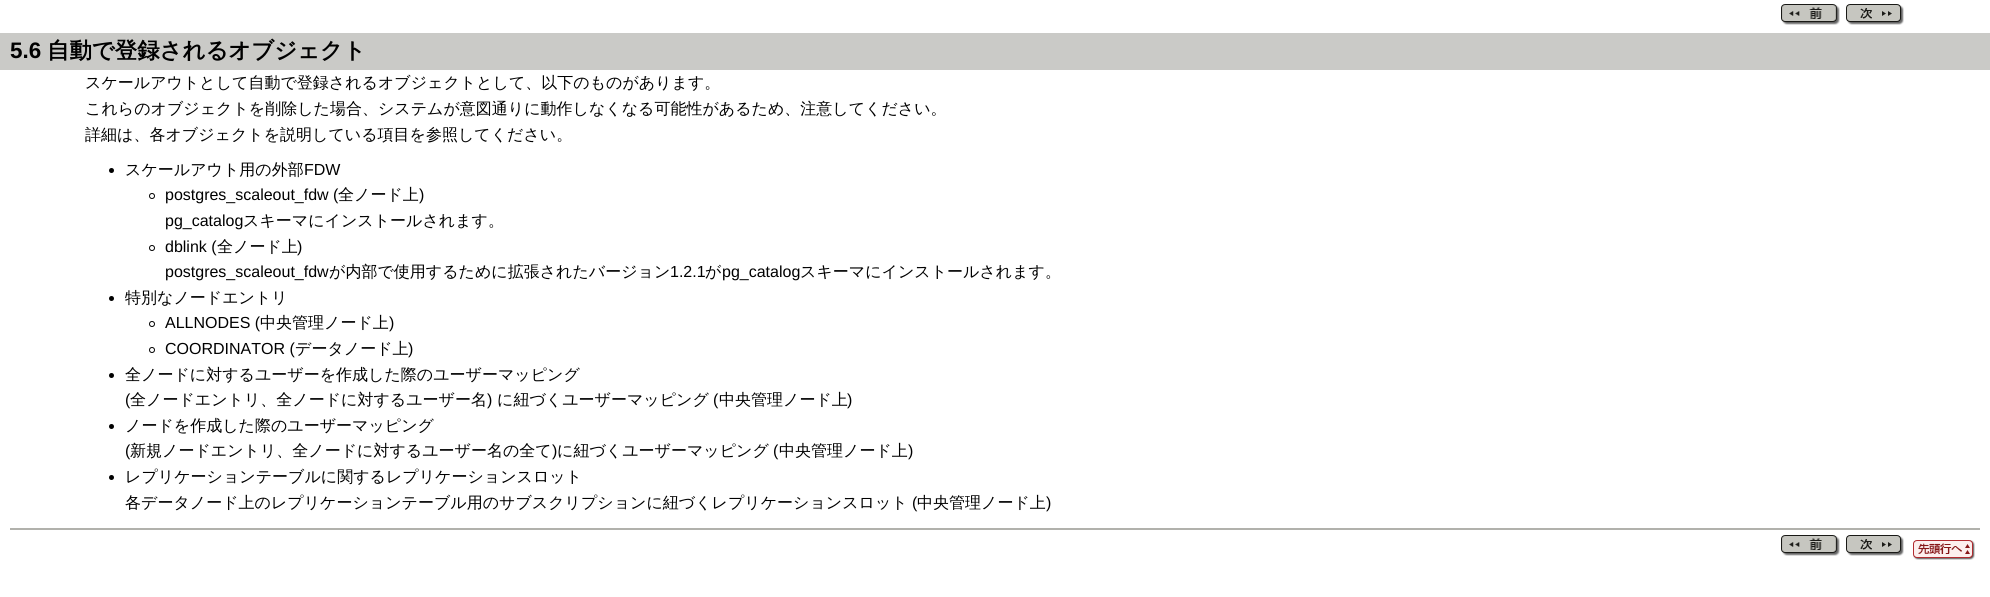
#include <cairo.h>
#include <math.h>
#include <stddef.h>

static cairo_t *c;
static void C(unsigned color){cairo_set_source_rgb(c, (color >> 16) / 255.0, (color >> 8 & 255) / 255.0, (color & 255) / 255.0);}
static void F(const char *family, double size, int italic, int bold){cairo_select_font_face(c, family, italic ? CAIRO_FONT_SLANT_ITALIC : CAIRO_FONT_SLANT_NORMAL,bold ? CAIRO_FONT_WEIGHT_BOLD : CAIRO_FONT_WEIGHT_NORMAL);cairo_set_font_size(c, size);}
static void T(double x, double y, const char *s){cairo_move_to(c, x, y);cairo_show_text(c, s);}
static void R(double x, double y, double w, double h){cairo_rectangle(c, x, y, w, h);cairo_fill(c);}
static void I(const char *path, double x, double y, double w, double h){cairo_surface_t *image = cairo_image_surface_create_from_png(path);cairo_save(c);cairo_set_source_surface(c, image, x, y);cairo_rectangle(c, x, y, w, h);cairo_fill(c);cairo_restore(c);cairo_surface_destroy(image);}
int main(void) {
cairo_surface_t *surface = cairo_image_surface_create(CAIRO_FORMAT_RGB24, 1990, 597);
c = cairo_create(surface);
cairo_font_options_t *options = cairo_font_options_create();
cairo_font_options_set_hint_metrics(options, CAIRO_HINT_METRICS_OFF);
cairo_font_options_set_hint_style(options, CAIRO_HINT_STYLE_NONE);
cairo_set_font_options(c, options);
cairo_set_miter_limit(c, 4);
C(0xffffff);
cairo_paint(c);
I("1.png",1781,4,59,21);
I("2.png",1846,4,58,21);
C(0xcacac7);
R(0,33,1990,37);
F("Liberation Sans",22.4,0,1);
C(0x000000);
T(10,58,"5.6");
F("WenQuanYi Zen Hei",22.4,0,1);
T(47,58,"自動で登録されるオブジェクト");
F("WenQuanYi Zen Hei Medium",16,0,0);
T(85,88,"スケールアウトとして自動で登録されるオブジェクトとして、以下のものがあります。");
T(85,114,"これらのオブジェクトを削除した場合、システムが意図通りに動作しなくなる可能性があるため、注意してください。");
T(85,140,"詳細は、各オブジェクトを説明している項目を参照してください。");
cairo_new_path(c);
cairo_arc(c,111.5,170.5,2.5,0,2 * M_PI);
cairo_fill(c);
T(125,175,"スケールアウト用の外部");
F("Liberation Sans",16,0,0);
T(304,175,"FDW");
cairo_new_path(c);
cairo_arc(c,152,196,2.5,0,2 * M_PI);
cairo_set_line_width(c,1);
cairo_stroke(c);
T(165,200,"postgres_scaleout_fdw (");
F("WenQuanYi Zen Hei Medium",16,0,0);
T(338,200,"全ノード上");
F("Liberation Sans",16,0,0);
T(419,200,")");
T(165,226,"pg_catalog");
F("WenQuanYi Zen Hei Medium",16,0,0);
T(243,226,"スキーマにインストールされます。");
cairo_new_path(c);
cairo_arc(c,152,248,2.5,0,2 * M_PI);
cairo_stroke(c);
F("Liberation Sans",16,0,0);
T(165,252,"dblink (");
F("WenQuanYi Zen Hei Medium",16,0,0);
T(217,252,"全ノード上");
F("Liberation Sans",16,0,0);
T(297,252,")");
T(165,277,"postgres_scaleout_fdw");
F("WenQuanYi Zen Hei Medium",16,0,0);
T(329,277,"が内部で使用するために拡張されたバージョン");
F("Liberation Sans",16,0,0);
T(670,277,"1.2.1");
F("WenQuanYi Zen Hei Medium",16,0,0);
T(705,277,"が");
F("Liberation Sans",16,0,0);
T(722,277,"pg_catalog");
F("WenQuanYi Zen Hei Medium",16,0,0);
T(800,277,"スキーマにインストールされます。");
cairo_new_path(c);
cairo_arc(c,111.5,298.5,2.5,0,2 * M_PI);
cairo_fill(c);
T(125,303,"特別なノードエントリ");
cairo_new_path(c);
cairo_arc(c,152,324,2.5,0,2 * M_PI);
cairo_stroke(c);
F("Liberation Sans",16,0,0);
T(165,328,"ALLNODES (");
F("WenQuanYi Zen Hei Medium",16,0,0);
T(260,328,"中央管理ノード上");
F("Liberation Sans",16,0,0);
T(389,328,")");
cairo_new_path(c);
cairo_arc(c,152,350,2.5,0,2 * M_PI);
cairo_stroke(c);
T(165,354,"COORDINATOR (");
F("WenQuanYi Zen Hei Medium",16,0,0);
T(295,354,"データノード上");
F("Liberation Sans",16,0,0);
T(408,354,")");
cairo_new_path(c);
cairo_arc(c,111.5,375.5,2.5,0,2 * M_PI);
cairo_fill(c);
F("WenQuanYi Zen Hei Medium",16,0,0);
T(125,380,"全ノードに対するユーザーを作成した際のユーザーマッピング");
F("Liberation Sans",16,0,0);
T(125,405,"(");
F("WenQuanYi Zen Hei Medium",16,0,0);
T(130,405,"全ノードエントリ、全ノードに対するユーザー名");
F("Liberation Sans",16,0,0);
T(487,405,")");
F("WenQuanYi Zen Hei Medium",16,0,0);
T(497,405,"に紐づくユーザーマッピング");
F("Liberation Sans",16,0,0);
T(713,405,"(");
F("WenQuanYi Zen Hei Medium",16,0,0);
T(719,405,"中央管理ノード上");
F("Liberation Sans",16,0,0);
T(847,405,")");
cairo_new_path(c);
cairo_arc(c,111.5,426.5,2.5,0,2 * M_PI);
cairo_fill(c);
F("WenQuanYi Zen Hei Medium",16,0,0);
T(125,431,"ノードを作成した際のユーザーマッピング");
F("Liberation Sans",16,0,0);
T(125,456,"(");
F("WenQuanYi Zen Hei Medium",16,0,0);
T(130,456,"新規ノードエントリ、全ノードに対するユーザー名の全て");
F("Liberation Sans",16,0,0);
T(552,456,")");
F("WenQuanYi Zen Hei Medium",16,0,0);
T(557,456,"に紐づくユーザーマッピング");
F("Liberation Sans",16,0,0);
T(773,456,"(");
F("WenQuanYi Zen Hei Medium",16,0,0);
T(779,456,"中央管理ノード上");
F("Liberation Sans",16,0,0);
T(908,456,")");
cairo_new_path(c);
cairo_arc(c,111.5,477.5,2.5,0,2 * M_PI);
cairo_fill(c);
F("WenQuanYi Zen Hei Medium",16,0,0);
T(125,482,"レプリケーションテーブルに関するレプリケーションスロット");
T(125,508,"各データノード上のレプリケーションテーブル用のサブスクリプションに紐づくレプリケーションスロット");
F("Liberation Sans",16,0,0);
T(912,508,"(");
F("WenQuanYi Zen Hei Medium",16,0,0);
T(917,508,"中央管理ノード上");
F("Liberation Sans",16,0,0);
T(1046,508,")");
C(0xb1b1ac);
R(10,528,1970,2);
I("1.png",1781,535,59,21);
I("2.png",1846,535,58,21);
I("3.png",1913,540,62,20);
cairo_surface_write_to_png(surface, "o.png");
cairo_font_options_destroy(options);
cairo_destroy(c);
cairo_surface_destroy(surface);
return 0;
}
